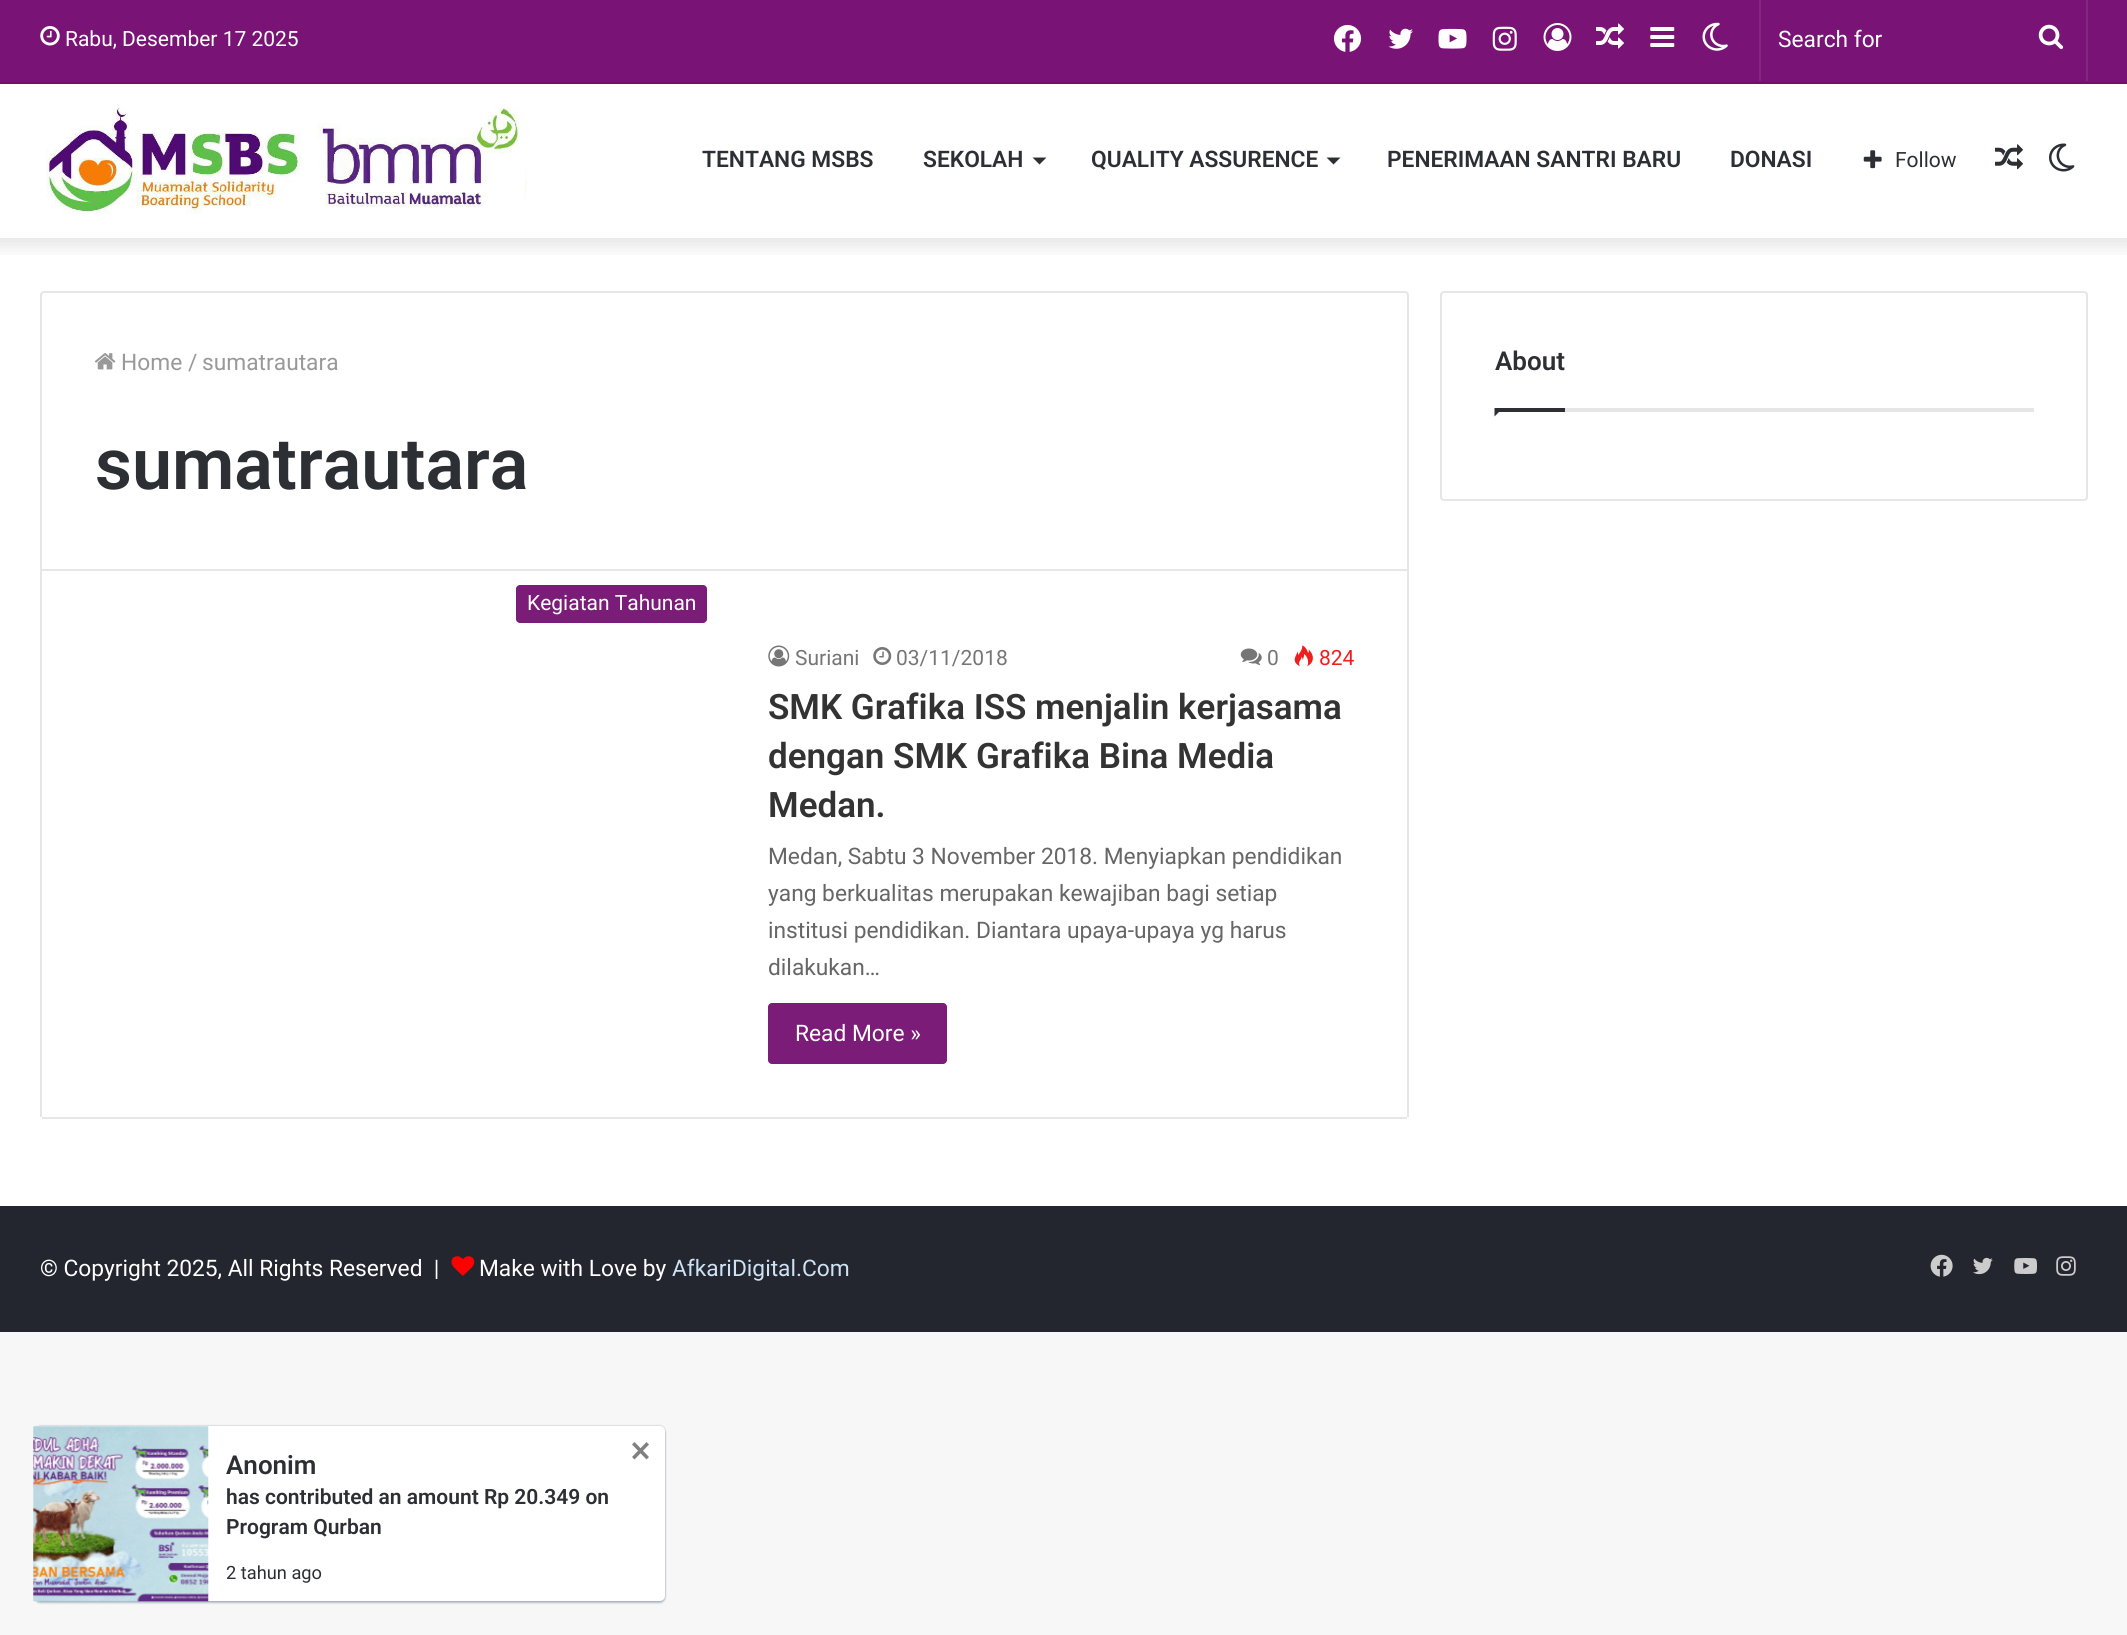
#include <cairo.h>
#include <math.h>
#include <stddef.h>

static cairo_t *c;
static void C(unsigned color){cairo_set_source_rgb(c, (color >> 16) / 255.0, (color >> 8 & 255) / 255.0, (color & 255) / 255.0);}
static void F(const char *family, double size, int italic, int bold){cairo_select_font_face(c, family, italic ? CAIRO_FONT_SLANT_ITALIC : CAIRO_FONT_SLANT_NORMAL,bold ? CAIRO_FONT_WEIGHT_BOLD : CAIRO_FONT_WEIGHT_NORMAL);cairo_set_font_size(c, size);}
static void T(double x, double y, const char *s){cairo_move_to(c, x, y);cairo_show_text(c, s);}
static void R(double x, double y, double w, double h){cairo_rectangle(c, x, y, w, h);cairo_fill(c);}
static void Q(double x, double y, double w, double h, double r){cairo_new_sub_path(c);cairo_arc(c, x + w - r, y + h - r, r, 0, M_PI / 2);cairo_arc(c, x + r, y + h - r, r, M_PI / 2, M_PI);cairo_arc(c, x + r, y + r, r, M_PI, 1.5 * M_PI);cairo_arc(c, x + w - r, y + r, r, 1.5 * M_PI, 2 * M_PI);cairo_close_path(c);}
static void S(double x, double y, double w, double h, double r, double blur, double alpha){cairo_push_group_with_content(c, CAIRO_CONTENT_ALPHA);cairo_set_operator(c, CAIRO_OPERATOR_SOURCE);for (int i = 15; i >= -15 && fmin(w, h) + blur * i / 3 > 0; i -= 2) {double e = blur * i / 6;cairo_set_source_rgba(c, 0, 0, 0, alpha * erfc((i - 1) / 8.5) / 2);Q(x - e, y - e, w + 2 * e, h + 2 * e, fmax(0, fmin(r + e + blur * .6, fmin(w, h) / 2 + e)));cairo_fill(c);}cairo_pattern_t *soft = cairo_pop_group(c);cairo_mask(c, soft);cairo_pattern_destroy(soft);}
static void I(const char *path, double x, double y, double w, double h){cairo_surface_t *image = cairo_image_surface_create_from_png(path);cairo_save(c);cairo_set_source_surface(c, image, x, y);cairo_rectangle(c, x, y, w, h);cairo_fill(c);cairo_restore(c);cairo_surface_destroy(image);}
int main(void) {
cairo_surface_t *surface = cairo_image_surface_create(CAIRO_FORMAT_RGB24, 2127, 1635);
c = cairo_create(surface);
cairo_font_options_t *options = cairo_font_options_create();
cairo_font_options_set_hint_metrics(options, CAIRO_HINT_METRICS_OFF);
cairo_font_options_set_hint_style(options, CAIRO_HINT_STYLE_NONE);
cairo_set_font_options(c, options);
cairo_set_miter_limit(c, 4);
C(0xf7f7f7);
cairo_paint(c);
C(0xffffff);
R(0,84,2127,1122);
cairo_save(c);
cairo_rectangle(c,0,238,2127,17);
cairo_clip(c);
C(0x000000);
S(-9,-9,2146,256,0,9,.1);
cairo_restore(c);
C(0x7a1376);
R(0,0,2127,82);
C(0x6e116a);
R(0,82,2127,2);
I("1.png",40,26,20,20);
F("Roboto",21,0,0);
C(0xffffff);
T(65,46,"Rabu, Desember 17 2025");
I("2.png",1333,24,29,28);
I("3.png",1388,28,25,21);
I("4.png",1438,28,29,21);
I("5.png",1492,26,25,25);
I("6.png",1543,23,29,28);
I("7.png",1596,23,28,26);
I("8.png",1650,27,25,20);
I("9.png",1702,22,26,29);
C(0x852681);
R(2086,0,2,81);
R(1759,0,2,81);
F("Roboto",22.75,0,0);
C(0xffffff);
T(1778,47,"Search for");
I("10.png",2038,24,26,26);
I("11.png",46,106,481,108);
F("Roboto SemiBold",22.75,0,0);
C(0x2c2f34);
T(702,167,"TENTANG MSBS");
T(923,167,"SEKOLAH");
cairo_new_path(c);
cairo_move_to(c,1032.5,157.5);
cairo_line_to(c,1046.5,157.5);
cairo_line_to(c,1039.5,164.5);
cairo_close_path(c);
cairo_fill(c);
T(1091,167,"QUALITY ASSURENCE");
cairo_new_path(c);
cairo_move_to(c,1326.5,157.5);
cairo_line_to(c,1340.5,157.5);
cairo_line_to(c,1333.5,164.5);
cairo_close_path(c);
cairo_fill(c);
T(1387,167,"PENERIMAAN SANTRI BARU");
T(1730,167,"DONASI");
I("12.png",1863,150,19,19);
F("Roboto",21,0,0);
T(1895,167,"Follow");
I("13.png",1995,144,28,26);
I("14.png",2049,143,26,29);
cairo_new_path(c);
cairo_move_to(c,44,292);
cairo_line_to(c,1405,292);
cairo_curve_to(c,1406.5,292,1408,293.5,1408,295);
cairo_line_to(c,1408,570);
cairo_line_to(c,41,570);
cairo_line_to(c,41,295);
cairo_curve_to(c,41,293.5,42.5,292,44,292);
cairo_close_path(c);
C(0xe6e6e6);
cairo_stroke(c);
I("15.png",94,353,22,17);
F("Roboto",22.75,0,0);
C(0x999999);
T(121,370,"Home");
T(188,370,"/");
T(202,370,"sumatrautara");
F("Roboto SemiBold",71.75,0,0);
C(0x2c2f34);
T(95,489,"sumatrautara");
C(0xe6e6e6);
R(1407,571,2,546);
R(42,1117,1365,2);
R(40,571,2,546);
C(0x7b1c78);
Q(516,585,191,38,4);
cairo_fill(c);
F("Roboto",21,0,0);
C(0xffffff);
T(527,610,"Kegiatan Tahunan");
I("16.png",768,645,22,22);
C(0x767676);
T(795,665,"Suriani");
I("17.png",873,647,19,18);
T(896,665,"03/11/2018");
I("18.png",1240,648,22,17);
T(1267,665,"0");
I("19.png",1294,645,19,22);
C(0xf11e1e);
T(1319,665,"824");
F("Roboto SemiBold",35,0,0);
C(0x333333);
T(768,719,"SMK Grafika ISS menjalin kerjasama");
T(768,768,"dengan SMK Grafika Bina Media");
T(768,817,"Medan.");
F("Roboto",22.75,0,0);
C(0x666666);
T(768,864,"Medan, Sabtu 3 November 2018. Menyiapkan pendidikan");
T(768,901,"yang berkualitas merupakan kewajiban bagi setiap");
T(768,938,"institusi pendidikan. Diantara upaya-upaya yg harus");
T(768,975,"dilakukan…");
C(0x7b1c78);
Q(768,1003,179,61,4);
cairo_fill(c);
C(0xffffff);
T(795,1041,"Read More »");
Q(1441,292,646,208,3);
C(0xe6e6e6);
cairo_stroke(c);
R(1565,408,469,4);
F("Roboto SemiBold",26,0,0);
C(0x2c2f34);
T(1495,370,"About");
cairo_new_path(c);
cairo_move_to(c,1494.5,408);
cairo_line_to(c,1503,408);
cairo_line_to(c,1494.5,416.5);
cairo_close_path(c);
cairo_fill(c);
R(1495,408,70,4);
C(0x23252f);
R(0,1206,2127,126);
F("Roboto",22.75,0,0);
C(0xffffff);
T(40,1276,"© Copyright 2025, All Rights Reserved  |");
I("20.png",451,1256,24,20);
T(479,1276,"Make with Love by");
C(0xcde2f4);
T(672,1276,"AfkariDigital.Com");
I("21.png",1930,1254,23,23);
I("22.png",1973,1257,20,18);
I("23.png",2014,1258,23,16);
I("24.png",2056,1256,20,20);
C(0x091e42);
S(35,1426,630,175,5,1,.31);
S(35,1428,630,175,5,1,.25);
C(0xffffff);
Q(35,1426,630,175,5);
cairo_fill(c);
C(0xfbfbfb);
R(33,1426,175,175);
I("25.png",33,1426,176,176);
C(0x808080);
cairo_new_path(c);
cairo_move_to(c,634.5,1442);
cairo_line_to(c,649,1457);
cairo_line_to(c,646.5,1459.5);
cairo_line_to(c,632,1444.5);
cairo_close_path(c);
cairo_fill(c);
cairo_new_path(c);
cairo_move_to(c,646.5,1442);
cairo_line_to(c,649,1444.5);
cairo_line_to(c,634.5,1459.5);
cairo_line_to(c,632,1457);
cairo_close_path(c);
cairo_fill(c);
F("Roboto SemiBold",26,0,0);
C(0x2c2f34);
T(226,1474,"Anonim");
F("Roboto SemiBold",21,0,0);
T(226,1504,"has contributed an amount Rp 20.349 on");
T(226,1534,"Program Qurban");
F("Roboto",18.25,0,0);
T(226,1579,"2 tahun ago");
cairo_surface_write_to_png(surface, "o.png");
cairo_font_options_destroy(options);
cairo_destroy(c);
cairo_surface_destroy(surface);
return 0;
}
